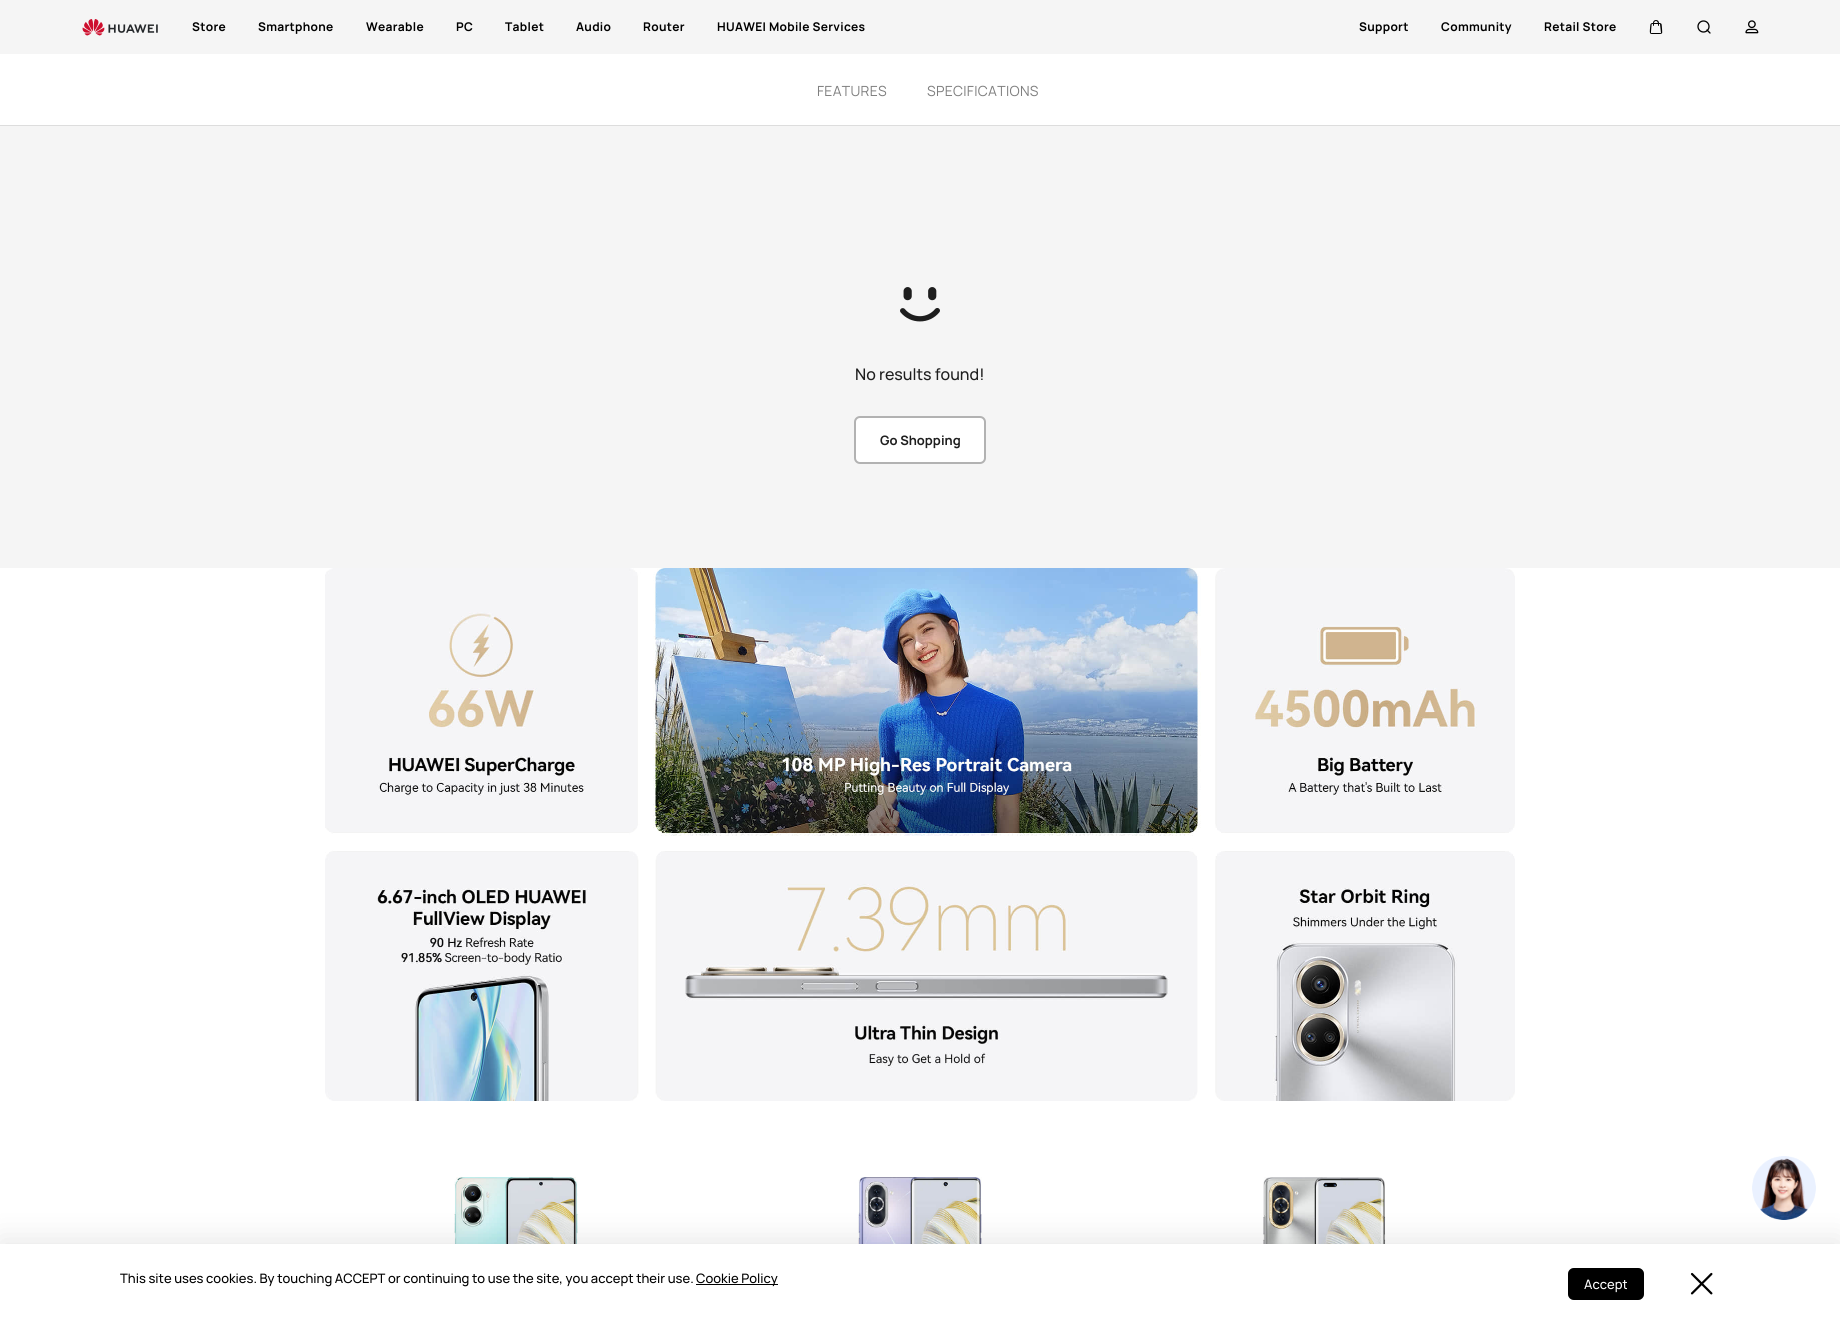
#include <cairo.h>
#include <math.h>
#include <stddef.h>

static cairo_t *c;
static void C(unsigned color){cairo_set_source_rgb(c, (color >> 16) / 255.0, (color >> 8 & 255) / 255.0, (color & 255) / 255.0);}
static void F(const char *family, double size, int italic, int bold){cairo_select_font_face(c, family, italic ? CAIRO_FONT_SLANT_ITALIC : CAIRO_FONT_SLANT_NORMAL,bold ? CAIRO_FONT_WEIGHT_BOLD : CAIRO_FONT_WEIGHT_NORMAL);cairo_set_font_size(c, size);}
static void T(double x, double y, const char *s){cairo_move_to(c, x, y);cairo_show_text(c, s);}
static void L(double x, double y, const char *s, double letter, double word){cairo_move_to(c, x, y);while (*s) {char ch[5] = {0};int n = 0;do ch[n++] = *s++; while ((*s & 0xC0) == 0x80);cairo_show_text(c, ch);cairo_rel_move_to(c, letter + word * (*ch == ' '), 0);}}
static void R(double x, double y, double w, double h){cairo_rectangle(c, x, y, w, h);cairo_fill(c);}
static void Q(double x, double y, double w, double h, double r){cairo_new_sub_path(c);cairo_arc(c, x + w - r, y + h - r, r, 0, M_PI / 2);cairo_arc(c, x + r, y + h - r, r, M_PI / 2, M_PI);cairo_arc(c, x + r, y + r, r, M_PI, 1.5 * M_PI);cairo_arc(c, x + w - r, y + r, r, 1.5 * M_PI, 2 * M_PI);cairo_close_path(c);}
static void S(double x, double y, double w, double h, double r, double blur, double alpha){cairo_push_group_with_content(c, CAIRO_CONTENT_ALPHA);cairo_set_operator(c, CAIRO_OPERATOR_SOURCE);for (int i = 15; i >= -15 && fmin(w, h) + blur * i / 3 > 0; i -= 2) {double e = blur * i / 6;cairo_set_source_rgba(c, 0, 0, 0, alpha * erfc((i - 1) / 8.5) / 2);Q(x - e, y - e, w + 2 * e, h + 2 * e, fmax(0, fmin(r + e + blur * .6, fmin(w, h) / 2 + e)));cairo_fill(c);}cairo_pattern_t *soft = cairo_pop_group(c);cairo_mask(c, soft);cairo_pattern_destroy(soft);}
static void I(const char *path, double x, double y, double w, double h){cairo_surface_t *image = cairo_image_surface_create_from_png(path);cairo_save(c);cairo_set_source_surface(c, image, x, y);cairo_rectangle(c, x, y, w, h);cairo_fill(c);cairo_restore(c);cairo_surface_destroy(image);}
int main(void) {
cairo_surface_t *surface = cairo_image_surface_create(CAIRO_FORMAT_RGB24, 1840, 1324);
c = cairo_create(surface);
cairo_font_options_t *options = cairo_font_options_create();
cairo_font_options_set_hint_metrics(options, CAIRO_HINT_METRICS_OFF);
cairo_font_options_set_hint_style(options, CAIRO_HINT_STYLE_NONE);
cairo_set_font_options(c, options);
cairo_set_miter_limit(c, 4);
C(0xffffff);
cairo_paint(c);
C(0xf5f5f5);
R(0,0,1840,54);
I("1.png",82,19,76,17);
F("Manrope",12,0,1);
C(0x000000);
L(192,31,"Store",.3,0);
L(258,31,"Smartphone",.3,0);
L(366,31,"Wearable",.3,0);
L(456,31,"PC",.3,0);
L(505,31,"Tablet",.3,0);
L(576,31,"Audio",.3,0);
L(643,31,"Router",.3,0);
L(717,31,"HUAWEI Mobile Services",.3,0);
L(1359,31,"Support",.3,0);
L(1441,31,"Community",.3,0);
L(1544,31,"Retail Store",.3,0);
cairo_set_fill_rule(c,CAIRO_FILL_RULE_EVEN_ODD);
cairo_new_path(c);
cairo_move_to(c,1656,20);
cairo_curve_to(c,1654,20,1653,21.5,1653,23);
cairo_curve_to(c,1649.5,23,1650.5,25.5,1650,28.5);
cairo_curve_to(c,1650,29.5,1649,34,1651.5,34);
cairo_line_to(c,1659,34);
cairo_curve_to(c,1663.5,34,1662,32.5,1662,28.5);
cairo_curve_to(c,1661.5,25,1662.5,23,1659,23);
cairo_curve_to(c,1659,21.5,1658,20,1656,20);
cairo_close_path(c);
cairo_move_to(c,1656,21);
cairo_curve_to(c,1657,21,1657.5,22,1658,23);
cairo_line_to(c,1654,23);
cairo_curve_to(c,1654,22,1655,21,1656,21);
cairo_close_path(c);
cairo_move_to(c,1660,24);
cairo_line_to(c,1661,33);
cairo_line_to(c,1653,33);
cairo_curve_to(c,1650.5,33,1651,33.5,1651,31.5);
cairo_line_to(c,1651.5,26);
cairo_curve_to(c,1651.5,24,1651.5,24,1653,24);
cairo_line_to(c,1653,26);
cairo_line_to(c,1654,25.5);
cairo_line_to(c,1654,24);
cairo_line_to(c,1658,24);
cairo_line_to(c,1658,26);
cairo_line_to(c,1659,25.5);
cairo_line_to(c,1659,24);
cairo_close_path(c);
cairo_fill(c);
cairo_arc(c,1703.5,26.5,5.5,0,2 * M_PI);
cairo_set_line_width(c,1.3);
cairo_stroke(c);
cairo_new_path(c);
cairo_move_to(c,1710,33);
cairo_line_to(c,1707,30);
cairo_set_line_cap(c,CAIRO_LINE_CAP_ROUND);
cairo_set_line_join(c,CAIRO_LINE_JOIN_ROUND);
cairo_stroke(c);
I("2.png",1745,20,14,14);
C(0xdddddd);
R(0,125,1840,1);
F("Manrope",14,0,0);
C(0x7f7f7f);
L(817,96,"FEATURES",.3,0);
L(927,96,"SPECIFICATIONS",.3,0);
C(0xf5f5f5);
R(0,126,1840,442);
I("3.png",900,287,40,35);
F("Manrope Medium",16,0,0);
C(0x1e1e1e);
T(855,380,"No results found!");
C(0xffffff);
Q(855,417,130,46,5);
cairo_fill_preserve(c);
C(0xb2b2b2);
cairo_set_line_width(c,2);
cairo_set_line_cap(c,CAIRO_LINE_CAP_BUTT);
cairo_set_line_join(c,CAIRO_LINE_JOIN_MITER);
cairo_stroke(c);
F("Manrope",13,0,1);
C(0x1e1e1e);
T(880,445,"Go Shopping");
I("4.png",325,568,1190,533);
I("5.png",454,1177,124,67);
I("6.png",858,1177,124,67);
I("7.png",1263,1177,123,67);
I("8.png",1752,1156,64,64);
C(0x000000);
S(0,1240,1840,80,0,15,.1);
C(0xffffff);
R(0,1244,1840,80);
F("Manrope Medium",13,0,0);
C(0x000000);
T(120,1283,"This site uses cookies. By touching ACCEPT or continuing to use the site, you accept their use.");
R(696,1284,82,1);
T(696,1283,"Cookie Policy");
Q(1568,1268,76,32,6);
cairo_fill(c);
Q(1568.5,1268.5,75,31,5.5);
cairo_set_source_rgba(c,0,0,0,0.3);
cairo_set_line_width(c,1);
cairo_stroke(c);
C(0xffffff);
T(1584,1289,"Accept");
I("9.png",1690,1272,23,23);
cairo_surface_write_to_png(surface, "o.png");
cairo_font_options_destroy(options);
cairo_destroy(c);
cairo_surface_destroy(surface);
return 0;
}
